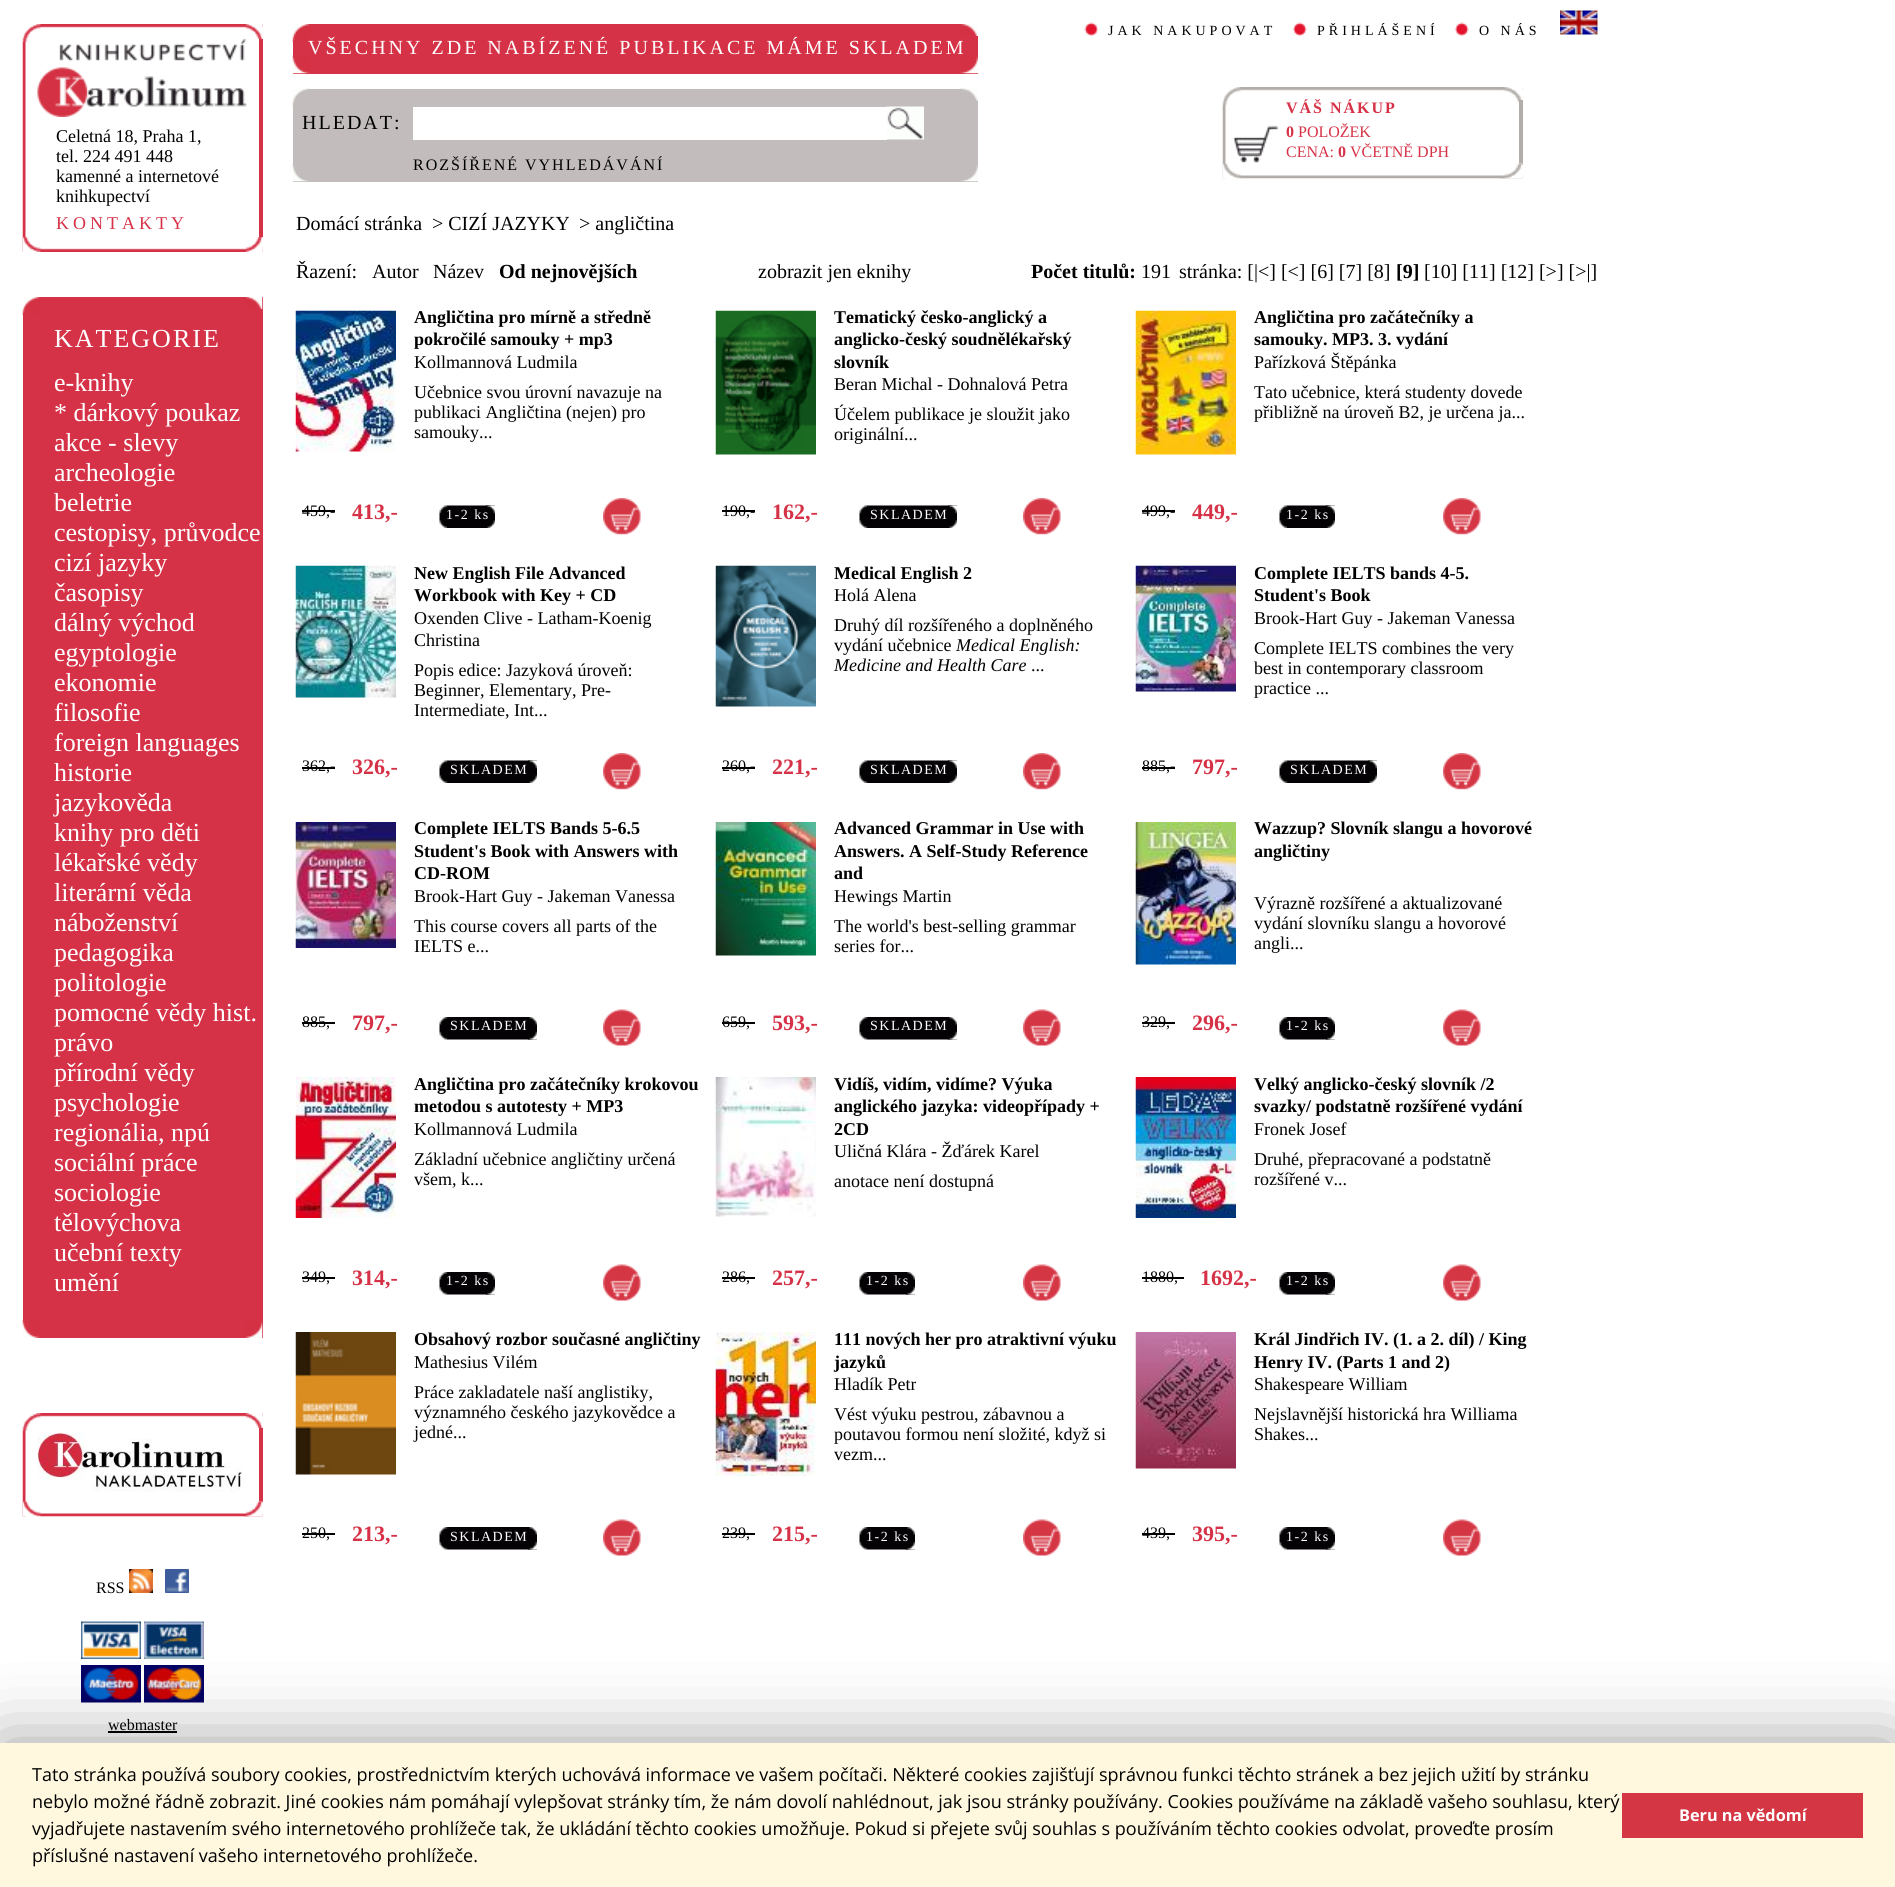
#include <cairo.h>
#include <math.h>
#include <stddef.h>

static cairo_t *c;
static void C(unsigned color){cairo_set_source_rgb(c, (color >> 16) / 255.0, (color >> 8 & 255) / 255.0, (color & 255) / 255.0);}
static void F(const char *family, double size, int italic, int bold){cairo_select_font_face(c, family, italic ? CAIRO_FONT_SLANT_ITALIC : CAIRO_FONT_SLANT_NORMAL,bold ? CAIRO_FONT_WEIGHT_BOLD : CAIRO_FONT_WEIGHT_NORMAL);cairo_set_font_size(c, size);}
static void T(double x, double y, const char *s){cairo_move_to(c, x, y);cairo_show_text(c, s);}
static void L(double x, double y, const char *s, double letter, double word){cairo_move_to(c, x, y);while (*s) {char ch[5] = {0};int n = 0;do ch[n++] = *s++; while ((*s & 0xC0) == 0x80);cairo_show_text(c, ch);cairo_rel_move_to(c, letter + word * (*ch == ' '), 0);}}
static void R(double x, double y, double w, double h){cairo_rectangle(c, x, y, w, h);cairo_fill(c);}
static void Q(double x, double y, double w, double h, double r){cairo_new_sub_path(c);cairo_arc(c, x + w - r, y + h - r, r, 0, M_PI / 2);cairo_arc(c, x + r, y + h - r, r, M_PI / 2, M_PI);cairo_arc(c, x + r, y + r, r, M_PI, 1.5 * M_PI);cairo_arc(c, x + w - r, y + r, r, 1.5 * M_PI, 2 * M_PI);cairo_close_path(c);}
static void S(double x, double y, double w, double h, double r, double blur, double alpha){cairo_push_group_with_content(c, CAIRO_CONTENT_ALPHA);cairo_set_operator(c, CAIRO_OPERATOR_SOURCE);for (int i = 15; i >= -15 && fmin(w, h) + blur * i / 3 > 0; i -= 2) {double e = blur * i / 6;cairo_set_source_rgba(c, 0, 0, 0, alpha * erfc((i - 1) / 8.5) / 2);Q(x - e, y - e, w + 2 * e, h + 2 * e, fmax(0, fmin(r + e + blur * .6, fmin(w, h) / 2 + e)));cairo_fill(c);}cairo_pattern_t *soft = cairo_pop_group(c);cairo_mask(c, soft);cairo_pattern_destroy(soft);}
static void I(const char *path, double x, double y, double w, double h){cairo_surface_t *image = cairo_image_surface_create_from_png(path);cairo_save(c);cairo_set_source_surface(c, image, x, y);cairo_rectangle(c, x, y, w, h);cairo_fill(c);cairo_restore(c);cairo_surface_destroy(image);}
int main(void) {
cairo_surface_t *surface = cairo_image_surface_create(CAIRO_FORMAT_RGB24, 1895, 1887);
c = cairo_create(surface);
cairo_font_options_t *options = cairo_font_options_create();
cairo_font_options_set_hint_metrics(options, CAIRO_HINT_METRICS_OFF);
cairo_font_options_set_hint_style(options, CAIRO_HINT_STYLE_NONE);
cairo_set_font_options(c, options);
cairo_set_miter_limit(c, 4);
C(0xffffff);
cairo_paint(c);
I("1.png",22,24,241,228);
I("2.png",245,24,18,15);
C(0xd63247);
R(259,39,4,198);
I("3.png",37,39,211,78);
F("Liberation Serif",18,0,0);
C(0x000000);
T(56,142,"Celetná 18, Praha 1,");
T(56,162,"tel. 224 491 448");
T(56,182,"kamenné a internetové");
T(56,202,"knihkupectví");
C(0xd63247);
L(56,229,"KONTAKTY",4,0);
I("4.png",22,237,241,15);
I("5.png",245,237,18,15);
R(23,297,240,1041);
I("6.png",22,1320,18,18);
I("7.png",244,1321,19,17);
I("8.png",22,297,19,18);
I("9.png",245,297,18,12);
F("Liberation Serif",26,0,0);
C(0xffffff);
L(54,347,"KATEGORIE",2,0);
T(54,391,"e-knihy");
T(54,421,"* dárkový poukaz");
T(54,451,"akce - slevy");
T(54,481,"archeologie");
T(54,511,"beletrie");
T(54,541,"cestopisy, průvodce");
T(54,571,"cizí jazyky");
T(54,601,"časopisy");
T(54,631,"dálný východ");
T(54,661,"egyptologie");
T(54,691,"ekonomie");
T(54,721,"filosofie");
T(54,751,"foreign languages");
T(54,781,"historie");
T(54,811,"jazykověda");
T(54,841,"knihy pro děti");
T(54,871,"lékařské vědy");
T(54,901,"literární věda");
T(54,931,"náboženství");
T(54,961,"pedagogika");
T(54,991,"politologie");
T(54,1021,"pomocné vědy hist.");
T(54,1051,"právo");
T(54,1081,"přírodní vědy");
T(54,1111,"psychologie");
T(54,1141,"regionália, npú");
T(54,1171,"sociální práce");
T(54,1201,"sociologie");
T(54,1231,"tělovýchova");
T(54,1261,"učební texty");
T(54,1291,"umění");
I("10.png",22,1413,241,104);
I("2.png",245,1413,18,15);
C(0xd63247);
R(259,1428,4,74);
I("11.png",37,1432,205,60);
I("12.png",22,1501,241,16);
I("13.png",244,1501,19,16);
F("Liberation Serif",16,0,0);
C(0x000000);
T(96,1593,"RSS");
I("14.png",129,1569,24,24);
I("15.png",165,1569,24,24);
I("16.png",81,1621,60,38);
I("17.png",144,1621,60,38);
I("18.png",81,1665,60,38);
I("19.png",144,1665,60,38);
T(108,1730,"webmaster");
R(108,1731,69,2);
I("20.png",1084,22,15,14);
F("Liberation Serif",14,0,0);
L(1108,35,"JAK NAKUPOVAT",4,0);
I("21.png",1292,22,15,14);
L(1317,35,"PŘIHLÁŠENÍ",4,0);
I("21.png",1454,22,15,14);
L(1479,35,"O NÁS",4,0);
I("22.png",1560,10,38,25);
C(0xd63247);
R(293,24,685,50);
I("23.png",292,55,18,19);
I("24.png",960,56,18,18);
I("25.png",292,24,19,18);
I("26.png",960,24,18,12);
F("Liberation Serif",20,0,0);
C(0xffffff);
L(308,54,"VŠECHNY ZDE NABÍZENÉ PUBLIKACE MÁME SKLADEM",3,0);
C(0xc2bdbc);
R(293,89,685,93);
I("27.png",292,163,17,19);
I("28.png",960,165,18,17);
I("29.png",292,88,19,19);
I("30.png",960,88,18,13);
C(0x000000);
L(302,129,"HLEDAT:",2,0);
I("31.png",886,106,38,34);
C(0xffffff);
R(413,107,474,33);
F("Liberation Serif",16,0,0);
C(0x000000);
L(413,170,"ROZŠÍŘENÉ VYHLEDÁVÁNÍ",2,0);
I("32.png",1222,87,301,92);
I("33.png",1500,87,23,15);
C(0xb2ada8);
R(1519,100,4,65);
F("Liberation Serif",16,0,1);
C(0xd63247);
L(1286,113,"VÁŠ NÁKUP",2,0);
I("34.png",1233,125,45,38);
T(1286,137,"0");
F("Liberation Serif",16,0,0);
T(1298,137,"POLOŽEK");
T(1286,157,"CENA:");
F("Liberation Serif",16,0,1);
T(1338,157,"0");
F("Liberation Serif",16,0,0);
T(1350,157,"VČETNĚ DPH");
I("35.png",1222,163,301,16);
I("36.png",1500,163,23,16);
F("Liberation Serif",20,0,0);
C(0x000000);
T(296,230,"Domácí stránka");
T(432,230,"> CIZÍ JAZYKY");
T(579,230,"> angličtina");
T(296,278,"Řazení:");
T(372,278,"Autor");
T(433,278,"Název");
F("Liberation Serif",20,0,1);
T(499,278,"Od nejnovějších");
F("Liberation Serif",20,0,0);
T(758,278,"zobrazit jen eknihy");
F("Liberation Serif",20,0,1);
T(1031,278,"Počet titulů:");
F("Liberation Serif",20,0,0);
T(1141,278,"191");
T(1179,278,"stránka: [|<] [<] [6] [7] [8]");
F("Liberation Serif",20,0,1);
T(1396,278,"[9]");
F("Liberation Serif",20,0,0);
T(1424,278,"[10] [11] [12] [>] [>|]");
I("37.png",295,310,101,142);
F("Liberation Serif",18,0,1);
T(414,323,"Angličtina pro mírně a středně");
T(414,345,"pokročilé samouky + mp3");
F("Liberation Serif",18,0,0);
T(414,368,"Kollmannová Ludmila");
T(414,398,"Učebnice svou úrovní navazuje na");
T(414,418,"publikaci Angličtina (nejen) pro");
T(414,438,"samouky...");
F("Liberation Serif",16,0,0);
T(302,516,"459,-");
R(302,510,33,2);
F("Liberation Serif",22,0,1);
C(0xd63247);
T(352,519,"413,-");
I("38.png",439,505,56,23);
I("39.png",486,505,9,23);
F("Liberation Serif",14,0,0);
C(0xffffff);
L(446,519,"1-2 ks",1.5,0);
I("40.png",603,498,38,37);
I("41.png",715,310,101,145);
F("Liberation Serif",18,0,1);
C(0x000000);
T(834,323,"Tematický česko-anglický a");
T(834,345,"anglicko-český soudnělékařský");
T(834,368,"slovník");
F("Liberation Serif",18,0,0);
T(834,390,"Beran Michal - Dohnalová Petra");
T(834,420,"Účelem publikace je sloužit jako");
T(834,440,"originální...");
F("Liberation Serif",16,0,0);
T(722,516,"190,-");
R(722,510,33,2);
F("Liberation Serif",22,0,1);
C(0xd63247);
T(772,519,"162,-");
I("42.png",859,505,98,23);
I("43.png",948,505,9,23);
F("Liberation Serif",14,0,0);
C(0xffffff);
L(870,519,"SKLADEM",1.5,0);
I("44.png",1023,498,38,37);
I("45.png",1135,310,101,145);
F("Liberation Serif",18,0,1);
C(0x000000);
T(1254,323,"Angličtina pro začátečníky a");
T(1254,345,"samouky. MP3. 3. vydání");
F("Liberation Serif",18,0,0);
T(1254,368,"Pařízková Štěpánka");
T(1254,398,"Tato učebnice, která studenty dovede");
T(1254,418,"přibližně na úroveň B2, je určena ja...");
F("Liberation Serif",16,0,0);
T(1142,516,"499,-");
R(1142,510,33,2);
F("Liberation Serif",22,0,1);
C(0xd63247);
T(1192,519,"449,-");
I("38.png",1279,505,56,23);
I("39.png",1326,505,9,23);
F("Liberation Serif",14,0,0);
C(0xffffff);
L(1286,519,"1-2 ks",1.5,0);
I("46.png",1443,498,38,37);
I("47.png",295,565,101,133);
F("Liberation Serif",18,0,1);
C(0x000000);
T(414,579,"New English File Advanced");
T(414,601,"Workbook with Key + CD");
F("Liberation Serif",18,0,0);
T(414,624,"Oxenden Clive - Latham-Koenig");
T(414,646,"Christina");
T(414,676,"Popis edice: Jazyková úroveň:");
T(414,696,"Beginner, Elementary, Pre-");
T(414,716,"Intermediate, Int...");
F("Liberation Serif",16,0,0);
T(302,771,"362,-");
R(302,767,33,2);
F("Liberation Serif",22,0,1);
C(0xd63247);
T(352,774,"326,-");
I("42.png",439,760,98,23);
I("39.png",528,760,9,23);
F("Liberation Serif",14,0,0);
C(0xffffff);
L(450,774,"SKLADEM",1.5,0);
I("40.png",603,753,38,37);
I("48.png",715,565,101,142);
F("Liberation Serif",18,0,1);
C(0x000000);
T(834,579,"Medical English 2");
F("Liberation Serif",18,0,0);
T(834,601,"Holá Alena");
T(834,631,"Druhý díl rozšířeného a doplněného");
T(834,651,"vydání učebnice");
F("Liberation Serif",18,1,0);
T(956,651,"Medical English:");
T(834,671,"Medicine and Health Care");
F("Liberation Serif",18,0,0);
T(1031,671,"...");
F("Liberation Serif",16,0,0);
T(722,771,"260,-");
R(722,767,33,2);
F("Liberation Serif",22,0,1);
C(0xd63247);
T(772,774,"221,-");
I("42.png",859,760,98,23);
I("43.png",948,760,9,23);
F("Liberation Serif",14,0,0);
C(0xffffff);
L(870,774,"SKLADEM",1.5,0);
I("44.png",1023,753,38,37);
I("49.png",1135,565,101,127);
F("Liberation Serif",18,0,1);
C(0x000000);
T(1254,579,"Complete IELTS bands 4-5.");
T(1254,601,"Student's Book");
F("Liberation Serif",18,0,0);
T(1254,624,"Brook-Hart Guy - Jakeman Vanessa");
T(1254,654,"Complete IELTS combines the very");
T(1254,674,"best in contemporary classroom");
T(1254,694,"practice ...");
F("Liberation Serif",16,0,0);
T(1142,771,"885,-");
R(1142,767,33,2);
F("Liberation Serif",22,0,1);
C(0xd63247);
T(1192,774,"797,-");
I("42.png",1279,760,98,23);
I("43.png",1368,760,9,23);
F("Liberation Serif",14,0,0);
C(0xffffff);
L(1290,774,"SKLADEM",1.5,0);
I("46.png",1443,753,38,37);
I("50.png",295,822,101,126);
F("Liberation Serif",18,0,1);
C(0x000000);
T(414,834,"Complete IELTS Bands 5-6.5");
T(414,857,"Student's Book with Answers with");
T(414,879,"CD-ROM");
F("Liberation Serif",18,0,0);
T(414,902,"Brook-Hart Guy - Jakeman Vanessa");
T(414,932,"This course covers all parts of the");
T(414,952,"IELTS e...");
F("Liberation Serif",16,0,0);
T(302,1027,"885,");
R(302,1022,33,2);
F("Liberation Serif",22,0,1);
C(0xd63247);
T(352,1030,"797,-");
I("51.png",439,1017,98,23);
I("52.png",528,1017,9,23);
F("Liberation Serif",14,0,0);
C(0xffffff);
L(450,1030,"SKLADEM",1.5,0);
I("53.png",603,1009,38,37);
I("54.png",715,822,101,134);
F("Liberation Serif",18,0,1);
C(0x000000);
T(834,834,"Advanced Grammar in Use with");
T(834,857,"Answers. A Self-Study Reference");
T(834,879,"and");
F("Liberation Serif",18,0,0);
T(834,902,"Hewings Martin");
T(834,932,"The world's best-selling grammar");
T(834,952,"series for...");
F("Liberation Serif",16,0,0);
T(722,1027,"659,");
R(722,1022,33,2);
F("Liberation Serif",22,0,1);
C(0xd63247);
T(772,1030,"593,-");
I("51.png",859,1017,98,23);
I("55.png",948,1017,9,23);
F("Liberation Serif",14,0,0);
C(0xffffff);
L(870,1030,"SKLADEM",1.5,0);
I("56.png",1023,1009,38,37);
I("57.png",1135,822,101,143);
F("Liberation Serif",18,0,1);
C(0x000000);
T(1254,834,"Wazzup? Slovník slangu a hovorové");
T(1254,857,"angličtiny");
F("Liberation Serif",18,0,0);
T(1254,909,"Výrazně rozšířené a aktualizované");
T(1254,929,"vydání slovníku slangu a hovorové");
T(1254,949,"angli...");
F("Liberation Serif",16,0,0);
T(1142,1027,"329,");
R(1142,1022,33,2);
F("Liberation Serif",22,0,1);
C(0xd63247);
T(1192,1030,"296,-");
I("58.png",1279,1017,56,23);
I("52.png",1326,1017,9,23);
F("Liberation Serif",14,0,0);
C(0xffffff);
L(1286,1030,"1-2 ks",1.5,0);
I("59.png",1443,1009,38,37);
I("60.png",295,1077,101,141);
F("Liberation Serif",18,0,1);
C(0x000000);
T(414,1090,"Angličtina pro začátečníky krokovou");
T(414,1112,"metodou s autotesty + MP3");
F("Liberation Serif",18,0,0);
T(414,1135,"Kollmannová Ludmila");
T(414,1165,"Základní učebnice angličtiny určená");
T(414,1185,"všem, k...");
F("Liberation Serif",16,0,0);
T(302,1282,"349,");
R(302,1277,33,2);
F("Liberation Serif",22,0,1);
C(0xd63247);
T(352,1285,"314,-");
I("58.png",439,1272,56,23);
I("52.png",486,1272,9,23);
F("Liberation Serif",14,0,0);
C(0xffffff);
L(446,1285,"1-2 ks",1.5,0);
I("53.png",603,1264,38,37);
I("61.png",715,1077,101,140);
F("Liberation Serif",18,0,1);
C(0x000000);
T(834,1090,"Vidíš, vidím, vidíme? Výuka");
T(834,1112,"anglického jazyka: videopřípady +");
T(834,1135,"2CD");
F("Liberation Serif",18,0,0);
T(834,1157,"Uličná Klára - Žďárek Karel");
T(834,1187,"anotace není dostupná");
F("Liberation Serif",16,0,0);
T(722,1282,"286,");
R(722,1277,33,2);
F("Liberation Serif",22,0,1);
C(0xd63247);
T(772,1285,"257,-");
I("58.png",859,1272,56,23);
I("55.png",906,1272,9,23);
F("Liberation Serif",14,0,0);
C(0xffffff);
L(866,1285,"1-2 ks",1.5,0);
I("56.png",1023,1264,38,37);
I("62.png",1135,1077,101,141);
F("Liberation Serif",18,0,1);
C(0x000000);
T(1254,1090,"Velký anglicko-český slovník /2");
T(1254,1112,"svazky/ podstatně rozšířené vydání");
F("Liberation Serif",18,0,0);
T(1254,1135,"Fronek Josef");
T(1254,1165,"Druhé, přepracované a podstatně");
T(1254,1185,"rozšířené v...");
F("Liberation Serif",16,0,0);
T(1142,1282,"1880,");
R(1142,1277,42,2);
F("Liberation Serif",22,0,1);
C(0xd63247);
T(1200,1285,"1692,-");
I("58.png",1279,1272,56,23);
I("52.png",1326,1272,9,23);
F("Liberation Serif",14,0,0);
C(0xffffff);
L(1286,1285,"1-2 ks",1.5,0);
I("59.png",1443,1264,38,37);
I("63.png",295,1332,101,143);
F("Liberation Serif",18,0,1);
C(0x000000);
T(414,1345,"Obsahový rozbor současné angličtiny");
F("Liberation Serif",18,0,0);
T(414,1368,"Mathesius Vilém");
T(414,1398,"Práce zakladatele naší anglistiky,");
T(414,1418,"významného českého jazykovědce a");
T(414,1438,"jedné...");
F("Liberation Serif",16,0,0);
T(302,1538,"250,");
R(302,1533,33,2);
F("Liberation Serif",22,0,1);
C(0xd63247);
T(352,1541,"213,-");
I("51.png",439,1527,98,23);
I("52.png",528,1527,9,23);
F("Liberation Serif",14,0,0);
C(0xffffff);
L(450,1541,"SKLADEM",1.5,0);
I("53.png",603,1519,38,37);
I("64.png",715,1332,101,144);
F("Liberation Serif",18,0,1);
C(0x000000);
T(834,1345,"111 nových her pro atraktivní výuku");
T(834,1368,"jazyků");
F("Liberation Serif",18,0,0);
T(834,1390,"Hladík Petr");
T(834,1420,"Vést výuku pestrou, zábavnou a");
T(834,1440,"poutavou formou není složité, když si");
T(834,1460,"vezm...");
F("Liberation Serif",16,0,0);
T(722,1538,"239,");
R(722,1533,33,2);
F("Liberation Serif",22,0,1);
C(0xd63247);
T(772,1541,"215,-");
I("58.png",859,1527,56,23);
I("55.png",906,1527,9,23);
F("Liberation Serif",14,0,0);
C(0xffffff);
L(866,1541,"1-2 ks",1.5,0);
I("56.png",1023,1519,38,37);
I("65.png",1135,1332,101,137);
F("Liberation Serif",18,0,1);
C(0x000000);
T(1254,1345,"Král Jindřich IV. (1. a 2. díl) / King");
T(1254,1368,"Henry IV. (Parts 1 and 2)");
F("Liberation Serif",18,0,0);
T(1254,1390,"Shakespeare William");
T(1254,1420,"Nejslavnější historická hra Williama");
T(1254,1440,"Shakes...");
F("Liberation Serif",16,0,0);
T(1142,1538,"439,");
R(1142,1533,33,2);
F("Liberation Serif",22,0,1);
C(0xd63247);
T(1192,1541,"395,-");
I("58.png",1279,1527,56,23);
I("52.png",1326,1527,9,23);
F("Liberation Serif",14,0,0);
C(0xffffff);
L(1286,1541,"1-2 ks",1.5,0);
I("59.png",1443,1519,38,37);
C(0x000000);
S(0,1743,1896,144,0,37.5,.38);
C(0xfff8de);
R(0,1743,1895,144);
F("Open Sans",18,0,0);
C(0x000000);
T(32,1781,"Tato stránka používá soubory cookies, prostřednictvím kterých uchovává informace ve vašem počítači. Některé cookies zajišťují správnou funkci těchto stránek a bez jejich užití by stránku");
T(32,1808,"nebylo možné řádně zobrazit. Jiné cookies nám pomáhají vylepšovat stránky tím, že nám dovolí nahlédnout, jak jsou stránky používány. Cookies používáme na základě vašeho souhlasu, který");
T(32,1835,"vyjadřujete nastavením svého internetového prohlížeče tak, že ukládání těchto cookies umožňuje. Pokud si přejete svůj souhlas s používáním těchto cookies odvolat, proveďte prosím");
T(32,1862,"příslušné nastavení vašeho internetového prohlížeče.");
C(0xd43644);
R(1622,1793,241,45);
F("Open Sans",16.25,0,1);
C(0xffffff);
T(1679,1821,"Beru na vědomí");
cairo_surface_write_to_png(surface, "o.png");
cairo_font_options_destroy(options);
cairo_destroy(c);
cairo_surface_destroy(surface);
return 0;
}
